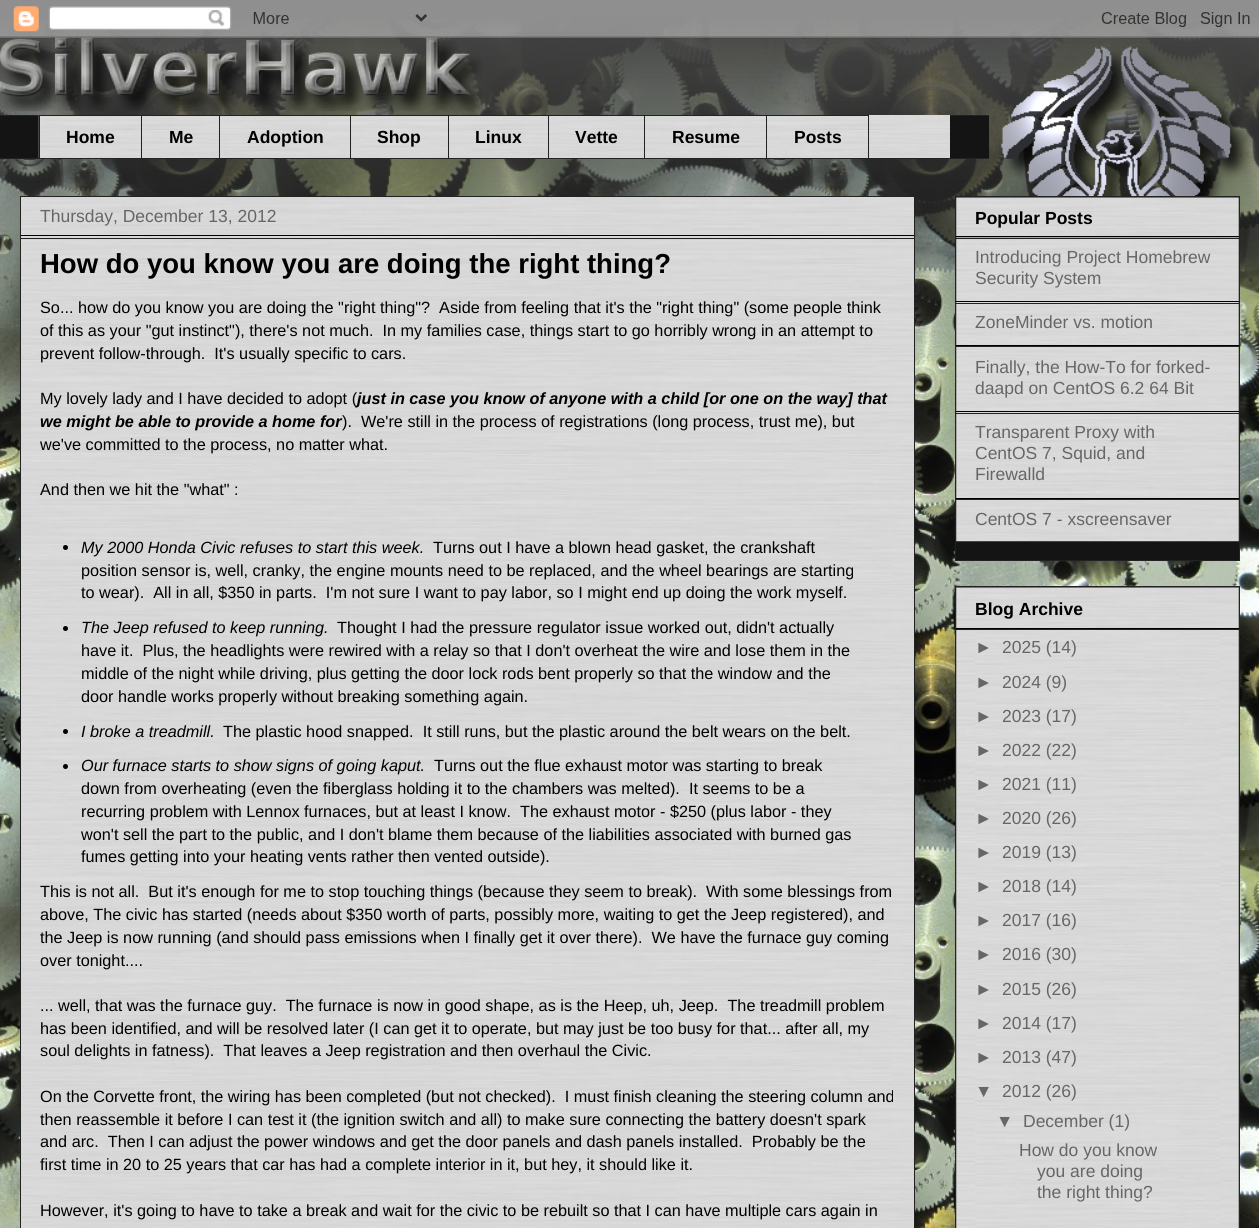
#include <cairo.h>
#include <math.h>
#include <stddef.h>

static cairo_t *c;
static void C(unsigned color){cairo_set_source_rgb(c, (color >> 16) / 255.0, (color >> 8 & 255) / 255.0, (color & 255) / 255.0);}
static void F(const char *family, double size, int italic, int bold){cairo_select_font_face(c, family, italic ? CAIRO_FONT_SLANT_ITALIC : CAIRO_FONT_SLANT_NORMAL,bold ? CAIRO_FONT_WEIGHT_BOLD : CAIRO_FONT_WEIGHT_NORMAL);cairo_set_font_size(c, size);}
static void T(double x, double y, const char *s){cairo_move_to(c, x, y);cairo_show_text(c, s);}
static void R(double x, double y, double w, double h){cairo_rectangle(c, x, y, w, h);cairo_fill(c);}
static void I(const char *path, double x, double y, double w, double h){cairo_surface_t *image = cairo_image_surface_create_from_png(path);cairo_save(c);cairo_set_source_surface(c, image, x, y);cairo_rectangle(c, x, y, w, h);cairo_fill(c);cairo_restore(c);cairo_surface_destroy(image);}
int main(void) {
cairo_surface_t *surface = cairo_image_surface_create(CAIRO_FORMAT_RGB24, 1259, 1228);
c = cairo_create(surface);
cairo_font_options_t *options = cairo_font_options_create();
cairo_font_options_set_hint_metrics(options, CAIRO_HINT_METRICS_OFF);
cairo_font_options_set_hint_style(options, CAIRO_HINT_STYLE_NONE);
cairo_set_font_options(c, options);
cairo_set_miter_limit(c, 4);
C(0xffffff);
cairo_paint(c);
I("1.png",0,16,1259,1212);
I("2.png",0,0,1259,344);
I("4.png",0,37,483,75);
I("3.png",0,0,1259,38);
I("5.png",1001,46,250,150);
C(0x141414);
R(0,116,989,42);
C(0x222222);
R(0,115,989,1);
I("6.png",38,115,912,43);
R(39,115,727,1);
R(39,115,1,44);
F("Liberation Sans",17.5,0,1);
C(0x000000);
T(66,143,"Home");
C(0x222222);
R(141,115,1,44);
C(0x000000);
T(169,143,"Me");
C(0x222222);
R(219,115,1,44);
C(0x000000);
T(247,143,"Adoption");
C(0x222222);
R(350,115,1,44);
C(0x000000);
T(377,143,"Shop");
C(0x222222);
R(448,115,1,44);
C(0x000000);
T(475,143,"Linux");
C(0x222222);
R(548,115,1,44);
C(0x000000);
T(575,143,"Vette");
C(0x222222);
R(644,115,1,44);
C(0x000000);
T(672,143,"Resume");
cairo_rectangle(c,766.5,115.5,102,43);
C(0x222222);
cairo_set_line_width(c,1);
cairo_stroke(c);
C(0x000000);
T(794,143,"Posts");
C(0x222222);
R(0,158,989,1);
I("7.png",21,197,893,1031);
cairo_rectangle(c,20.5,196.5,894,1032);
cairo_stroke(c);
C(0x000000);
R(21,235,893,1);
F("Liberation Sans",17.5,0,0);
C(0x666666);
T(40,222,"Thursday, December 13, 2012");
C(0x222222);
R(21,238,893,1);
I("8.png",21,249,893,977);
F("Liberation Sans",27.5,0,1);
C(0x000000);
T(40,273,"How do you know you are doing the right thing?");
F("Liberation Sans",16.25,0,0);
T(40,313,"So... how do you know you are doing the \"right thing\"?  Aside from feeling that it's the \"right thing\" (some people think");
T(40,336,"of this as your \"gut instinct\"), there's not much.  In my families case, things start to go horribly wrong in an attempt to");
T(40,359,"prevent follow-through.  It's usually specific to cars.");
T(40,404,"My lovely lady and I have decided to adopt (");
F("Liberation Sans",16.25,1,1);
T(357,404,"just in case you know of anyone with a child [or one on the way] that");
T(40,427,"we might be able to provide a home for");
F("Liberation Sans",16.25,0,0);
T(342,427,").  We're still in the process of registrations (long process, trust me), but");
T(40,450,"we've committed to the process, no matter what.");
T(40,495,"And then we hit the \"what\" :");
cairo_new_path(c);
cairo_arc(c,65.5,547.5,2.5,0,2 * M_PI);
cairo_fill(c);
F("Liberation Sans",16.25,1,0);
T(81,553,"My 2000 Honda Civic refuses to start this week.");
F("Liberation Sans",16.25,0,0);
T(433,553,"Turns out I have a blown head gasket, the crankshaft");
T(81,576,"position sensor is, well, cranky, the engine mounts need to be replaced, and the wheel bearings are starting");
T(81,598,"to wear).  All in all, $350 in parts.  I'm not sure I want to pay labor, so I might end up doing the work myself.");
cairo_new_path(c);
cairo_arc(c,65.5,628.5,2.5,0,2 * M_PI);
cairo_fill(c);
F("Liberation Sans",16.25,1,0);
T(81,633,"The Jeep refused to keep running.");
F("Liberation Sans",16.25,0,0);
T(337,633,"Thought I had the pressure regulator issue worked out, didn't actually");
T(81,656,"have it.  Plus, the headlights were rewired with a relay so that I don't overheat the wire and lose them in the");
T(81,679,"middle of the night while driving, plus getting the door lock rods bent properly so that the window and the");
T(81,702,"door handle works properly without breaking something again.");
cairo_new_path(c);
cairo_arc(c,65.5,731.5,2.5,0,2 * M_PI);
cairo_fill(c);
F("Liberation Sans",16.25,1,0);
T(81,737,"I broke a treadmill.");
F("Liberation Sans",16.25,0,0);
T(223,737,"The plastic hood snapped.  It still runs, but the plastic around the belt wears on the belt.");
cairo_new_path(c);
cairo_arc(c,65.5,766.5,2.5,0,2 * M_PI);
cairo_fill(c);
F("Liberation Sans",16.25,1,0);
T(81,771,"Our furnace starts to show signs of going kaput.");
F("Liberation Sans",16.25,0,0);
T(434,771,"Turns out the flue exhaust motor was starting to break");
T(81,794,"down from overheating (even the fiberglass holding it to the chambers was melted).  It seems to be a");
T(81,817,"recurring problem with Lennox furnaces, but at least I know.  The exhaust motor - $250 (plus labor - they");
T(81,840,"won't sell the part to the public, and I don't blame them because of the liabilities associated with burned gas");
T(81,862,"fumes getting into your heating vents rather then vented outside).");
T(40,897,"This is not all.  But it's enough for me to stop touching things (because they seem to break).  With some blessings from");
T(40,920,"above, The civic has started (needs about $350 worth of parts, possibly more, waiting to get the Jeep registered), and");
T(40,943,"the Jeep is now running (and should pass emissions when I finally get it over there).  We have the furnace guy coming");
T(40,966,"over tonight....");
T(40,1011,"... well, that was the furnace guy.  The furnace is now in good shape, as is the Heep, uh, Jeep.  The treadmill problem");
T(40,1034,"has been identified, and will be resolved later (I can get it to operate, but may just be too busy for that... after all, my");
T(40,1056,"soul delights in fatness).  That leaves a Jeep registration and then overhaul the Civic.");
T(40,1102,"On the Corvette front, the wiring has been completed (but not checked).  I must finish cleaning the steering column and");
T(40,1125,"then reassemble it before I can test it (the ignition switch and all) to make sure connecting the battery doesn't spark");
T(40,1147,"and arc.  Then I can adjust the power windows and get the door panels and dash panels installed.  Probably be the");
T(40,1170,"first time in 20 to 25 years that car has had a complete interior in it, but hey, it should like it.");
T(40,1216,"However, it's going to have to take a break and wait for the civic to be rebuilt so that I can have multiple cars again in");
C(0x141414);
cairo_rectangle(c,955.5,196.5,284,364);
cairo_fill_preserve(c);
C(0x222222);
cairo_stroke(c);
I("10.png",956,237,283,305);
I("9.png",956,197,283,41);
C(0x000000);
R(956,236,283,1);
F("Liberation Sans",17.5,0,1);
T(975,224,"Popular Posts");
C(0x222222);
R(956,238,283,1);
C(0x000000);
R(956,301,283,1);
F("Liberation Sans",17.5,0,0);
C(0x666666);
T(975,263,"Introducing Project Homebrew");
T(975,284,"Security System");
C(0x222222);
R(956,303,283,1);
C(0x000000);
R(956,345,283,1);
C(0x666666);
T(975,328,"ZoneMinder vs. motion");
C(0x222222);
R(956,346,283,1);
C(0x000000);
R(956,411,283,1);
C(0x666666);
T(975,373,"Finally, the How-To for forked-");
T(975,394,"daapd on CentOS 6.2 64 Bit");
C(0x222222);
R(956,413,283,1);
C(0x000000);
R(956,498,283,1);
C(0x666666);
T(975,438,"Transparent Proxy with");
T(975,459,"CentOS 7, Squid, and");
T(975,480,"Firewalld");
C(0x222222);
R(956,499,283,1);
C(0x666666);
T(975,525,"CentOS 7 - xscreensaver");
C(0x141414);
cairo_rectangle(c,955.5,586.5,284,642);
cairo_fill_preserve(c);
C(0x222222);
cairo_stroke(c);
I("11.png",956,587,283,41);
C(0x000000);
R(956,628,283,1);
F("Liberation Sans",17.5,0,1);
T(975,615,"Blog Archive");
I("12.png",956,630,283,598);
C(0x222222);
R(956,629,283,1);
I("13.png",975,632,245,596);
F("Liberation Sans",17.5,0,0);
C(0x666666);
T(975,653,"►");
T(1002,653,"2025 (14)");
T(975,688,"►");
T(1002,688,"2024 (9)");
T(975,722,"►");
T(1002,722,"2023 (17)");
T(975,756,"►");
T(1002,756,"2022 (22)");
T(975,790,"►");
T(1002,790,"2021 (11)");
T(975,824,"►");
T(1002,824,"2020 (26)");
T(975,858,"►");
T(1002,858,"2019 (13)");
T(975,892,"►");
T(1002,892,"2018 (14)");
T(975,926,"►");
T(1002,926,"2017 (16)");
T(975,960,"►");
T(1002,960,"2016 (30)");
T(975,995,"►");
T(1002,995,"2015 (26)");
T(975,1029,"►");
T(1002,1029,"2014 (17)");
T(975,1063,"►");
T(1002,1063,"2013 (47)");
T(975,1097,"▼");
T(1002,1097,"2012 (26)");
T(996,1127,"▼");
T(1023,1127,"December (1)");
T(1019,1156,"How do you know");
T(1037,1177,"you are doing");
T(1037,1198,"the right thing?");
cairo_surface_write_to_png(surface, "o.png");
cairo_font_options_destroy(options);
cairo_destroy(c);
cairo_surface_destroy(surface);
return 0;
}
